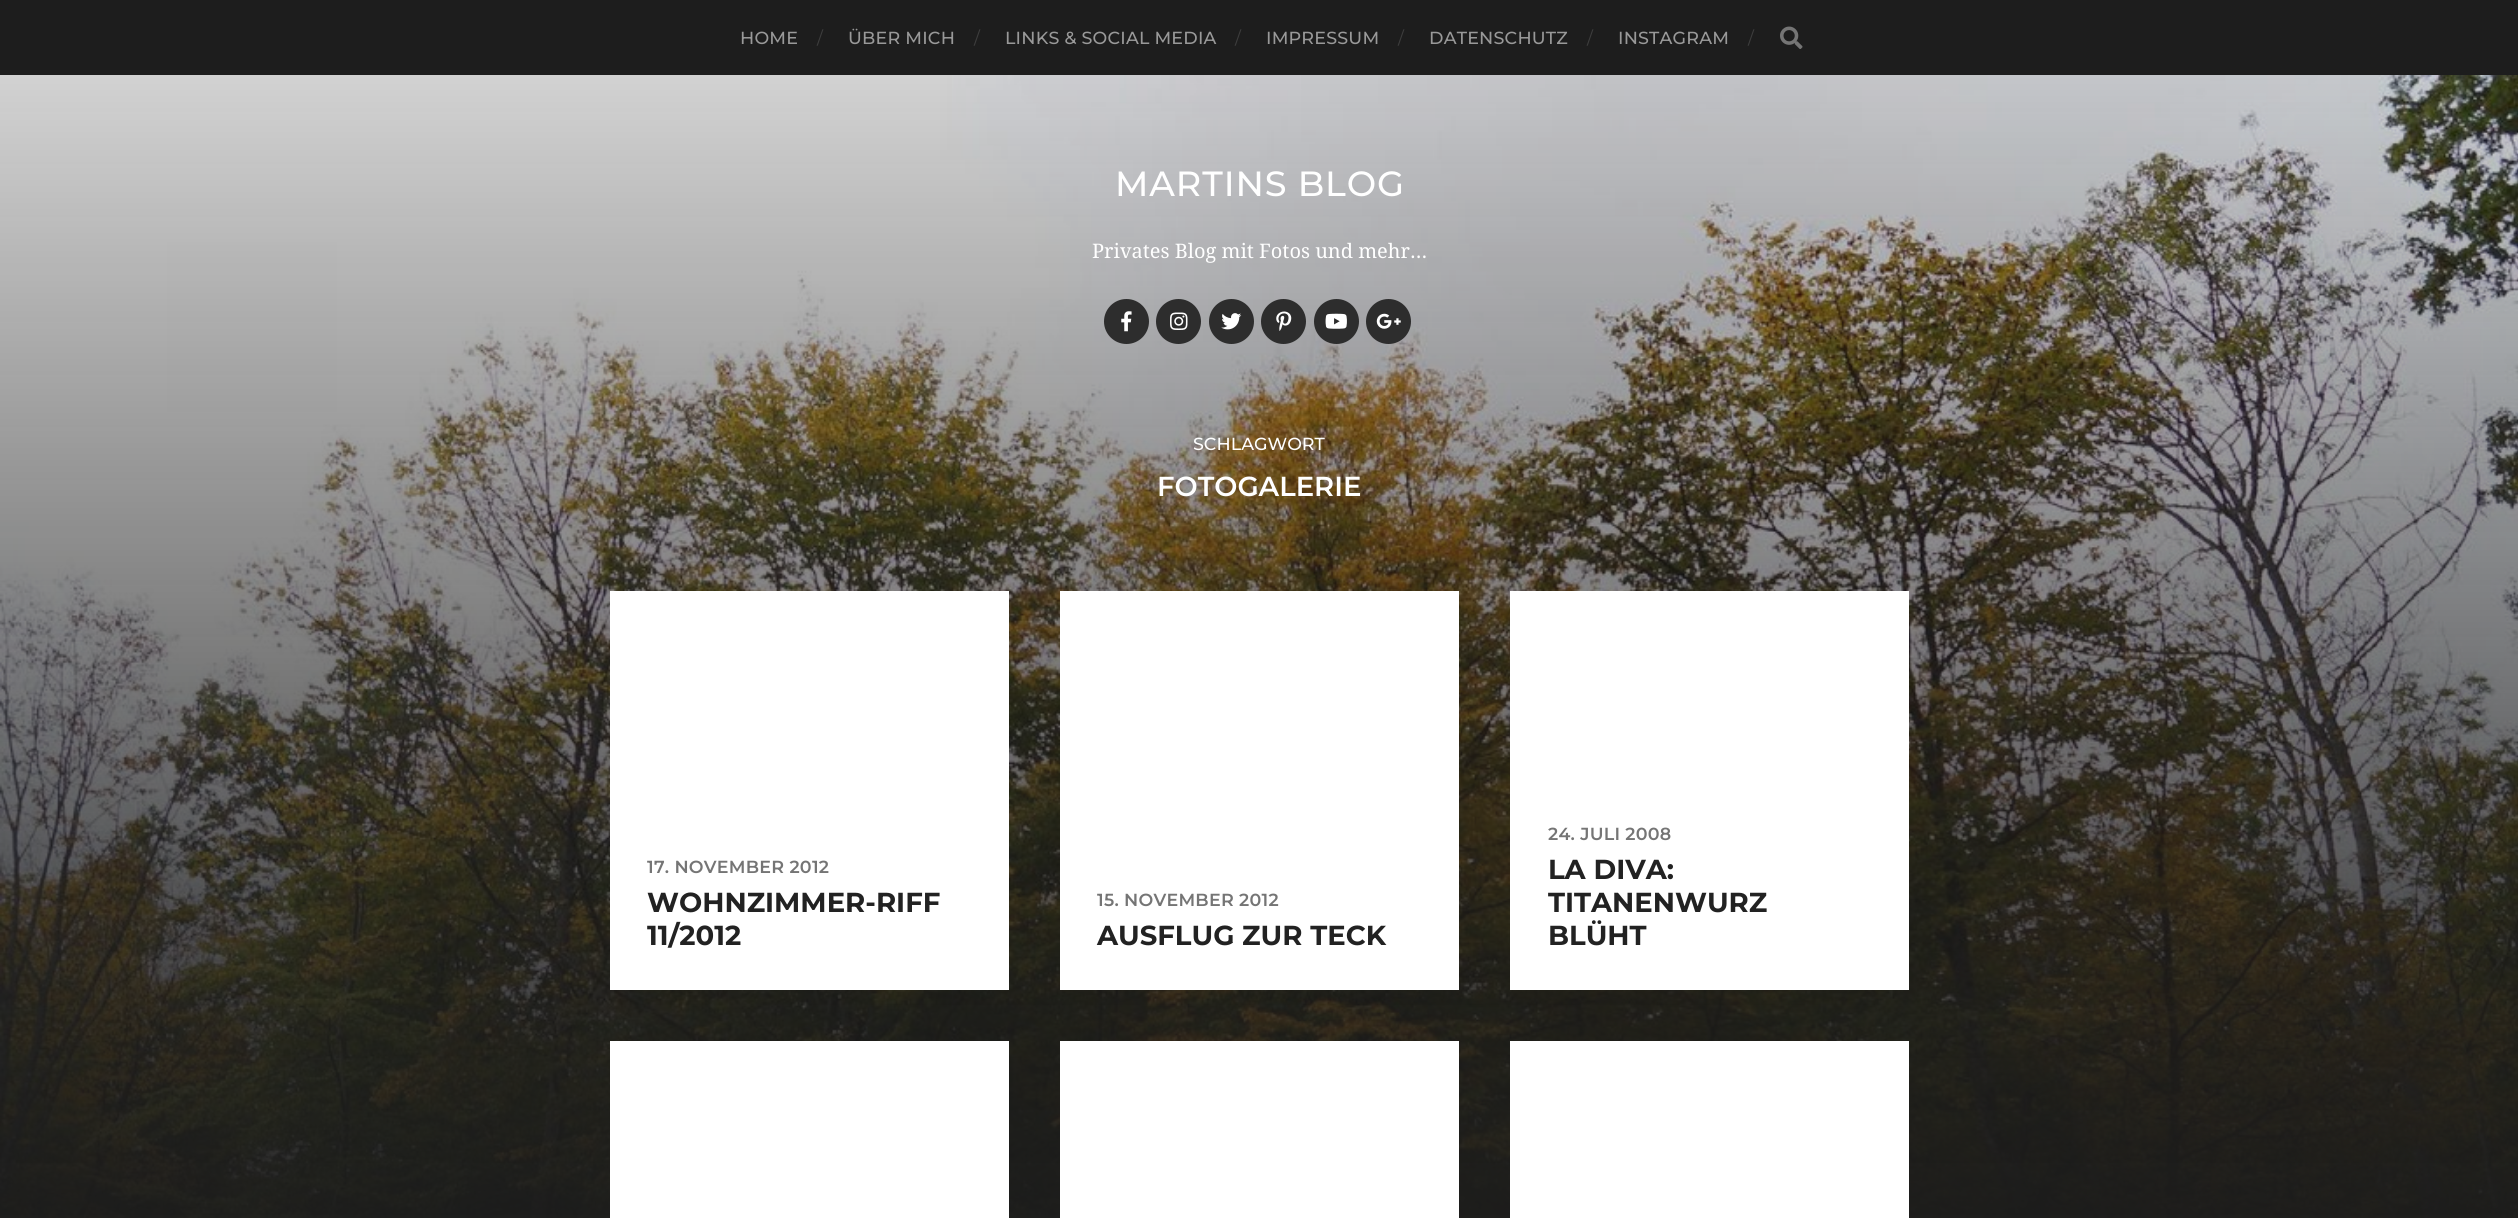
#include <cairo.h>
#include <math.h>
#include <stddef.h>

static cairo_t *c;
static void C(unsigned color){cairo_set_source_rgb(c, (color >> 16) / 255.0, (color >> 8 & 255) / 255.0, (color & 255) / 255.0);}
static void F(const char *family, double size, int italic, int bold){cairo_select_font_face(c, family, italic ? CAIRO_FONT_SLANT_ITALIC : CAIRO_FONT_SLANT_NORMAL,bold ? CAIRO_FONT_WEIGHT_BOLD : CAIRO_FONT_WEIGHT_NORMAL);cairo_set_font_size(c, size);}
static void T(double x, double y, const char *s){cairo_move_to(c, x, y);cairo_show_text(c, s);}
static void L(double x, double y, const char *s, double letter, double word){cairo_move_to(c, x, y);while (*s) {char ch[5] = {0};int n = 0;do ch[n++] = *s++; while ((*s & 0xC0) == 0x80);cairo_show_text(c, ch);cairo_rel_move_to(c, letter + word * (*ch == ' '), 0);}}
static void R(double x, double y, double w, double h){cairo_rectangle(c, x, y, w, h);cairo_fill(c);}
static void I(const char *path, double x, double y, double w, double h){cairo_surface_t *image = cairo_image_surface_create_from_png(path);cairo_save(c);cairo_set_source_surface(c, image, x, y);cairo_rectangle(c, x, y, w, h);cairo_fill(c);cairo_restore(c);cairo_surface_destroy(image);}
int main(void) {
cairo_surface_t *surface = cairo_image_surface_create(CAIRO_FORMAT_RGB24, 2518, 1218);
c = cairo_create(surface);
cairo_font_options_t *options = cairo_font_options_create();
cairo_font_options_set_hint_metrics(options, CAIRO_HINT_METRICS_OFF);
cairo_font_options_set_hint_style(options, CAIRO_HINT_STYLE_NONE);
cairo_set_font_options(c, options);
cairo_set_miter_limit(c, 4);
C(0x1d1d1d);
cairo_paint(c);
F("Montserrat Thin",17.5,0,0);
C(0x999999);
L(740,44,"HOME",.2,0);
F("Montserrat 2 Thin",17.5,0,0);
C(0x3d3d3d);
T(817,44,"/");
F("Montserrat Thin",17.5,0,0);
C(0x999999);
L(848,44,"ÜBER MICH",.2,0);
F("Montserrat 2 Thin",17.5,0,0);
C(0x3d3d3d);
T(974,44,"/");
F("Montserrat Thin",17.5,0,0);
C(0x999999);
L(1005,44,"LINKS & SOCIAL MEDIA",.2,0);
F("Montserrat 2 Thin",17.5,0,0);
C(0x3d3d3d);
T(1235,44,"/");
F("Montserrat Thin",17.5,0,0);
C(0x999999);
L(1266,44,"IMPRESSUM",.2,0);
F("Montserrat 2 Thin",17.5,0,0);
C(0x3d3d3d);
T(1398,44,"/");
F("Montserrat Thin",17.5,0,0);
C(0x999999);
L(1429,44,"DATENSCHUTZ",.2,0);
F("Montserrat 2 Thin",17.5,0,0);
C(0x3d3d3d);
T(1587,44,"/");
F("Montserrat Thin",17.5,0,0);
C(0x999999);
L(1618,44,"INSTAGRAM",.2,0);
F("Montserrat 2 Thin",17.5,0,0);
C(0x3d3d3d);
T(1748,44,"/");
I("1.png",1780,26,23,23);
I("2.png",0,75,2518,1143);
F("Montserrat Thin",35,0,0);
C(0xffffff);
L(1115,196,"MARTINS BLOG",.9,0);
F("Droid Serif",20,0,0);
T(1092,258,"Privates Blog mit Fotos und mehr...");
C(0x2d2d2d);
cairo_new_path(c);
cairo_arc(c,1126.5,321.5,22.5,0,2 * M_PI);
cairo_fill(c);
I("3.png",1121,311,11,21);
cairo_arc(c,1178.5,321.5,22.5,0,2 * M_PI);
cairo_fill(c);
I("4.png",1170,312,18,18);
cairo_arc(c,1231.5,321.5,22.5,0,2 * M_PI);
cairo_fill(c);
I("5.png",1221,313,21,17);
cairo_arc(c,1283.5,321.5,22.5,0,2 * M_PI);
cairo_fill(c);
I("6.png",1276,311,16,20);
cairo_arc(c,1336.5,321.5,22.5,0,2 * M_PI);
cairo_fill(c);
I("7.png",1325,313,22,16);
cairo_arc(c,1388.5,321.5,22.5,0,2 * M_PI);
cairo_fill(c);
I("8.png",1376,313,25,16);
F("Montserrat Thin",17.5,0,0);
C(0xffffff);
T(1193,450,"SCHLAGWORT");
F("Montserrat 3 Thin",27.5,0,0);
T(1157,496,"FOTOGALERIE");
R(610,591,399,399);
F("Montserrat 3 Thin",17.5,0,0);
C(0x757575);
L(647,873,"17. NOVEMBER 2012",.25,0);
F("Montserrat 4 Thin",27.5,0,0);
C(0x222222);
T(647,912,"WOHNZIMMER-RIFF");
T(647,945,"11/2012");
C(0xffffff);
R(1060,591,399,399);
F("Montserrat 3 Thin",17.5,0,0);
C(0x757575);
L(1097,906,"15. NOVEMBER 2012",.25,0);
F("Montserrat 4 Thin",27.5,0,0);
C(0x222222);
T(1097,945,"AUSFLUG ZUR TECK");
C(0xffffff);
R(1510,591,399,399);
F("Montserrat 3 Thin",17.5,0,0);
C(0x757575);
L(1548,840,"24. JULI 2008",.25,0);
F("Montserrat 4 Thin",27.5,0,0);
C(0x222222);
T(1548,879,"LA DIVA:");
T(1548,912,"TITANENWURZ");
T(1548,945,"BLÜHT");
C(0xffffff);
R(610,1041,399,177);
R(1060,1041,399,177);
R(1510,1041,399,177);
cairo_surface_write_to_png(surface, "o.png");
cairo_font_options_destroy(options);
cairo_destroy(c);
cairo_surface_destroy(surface);
return 0;
}
